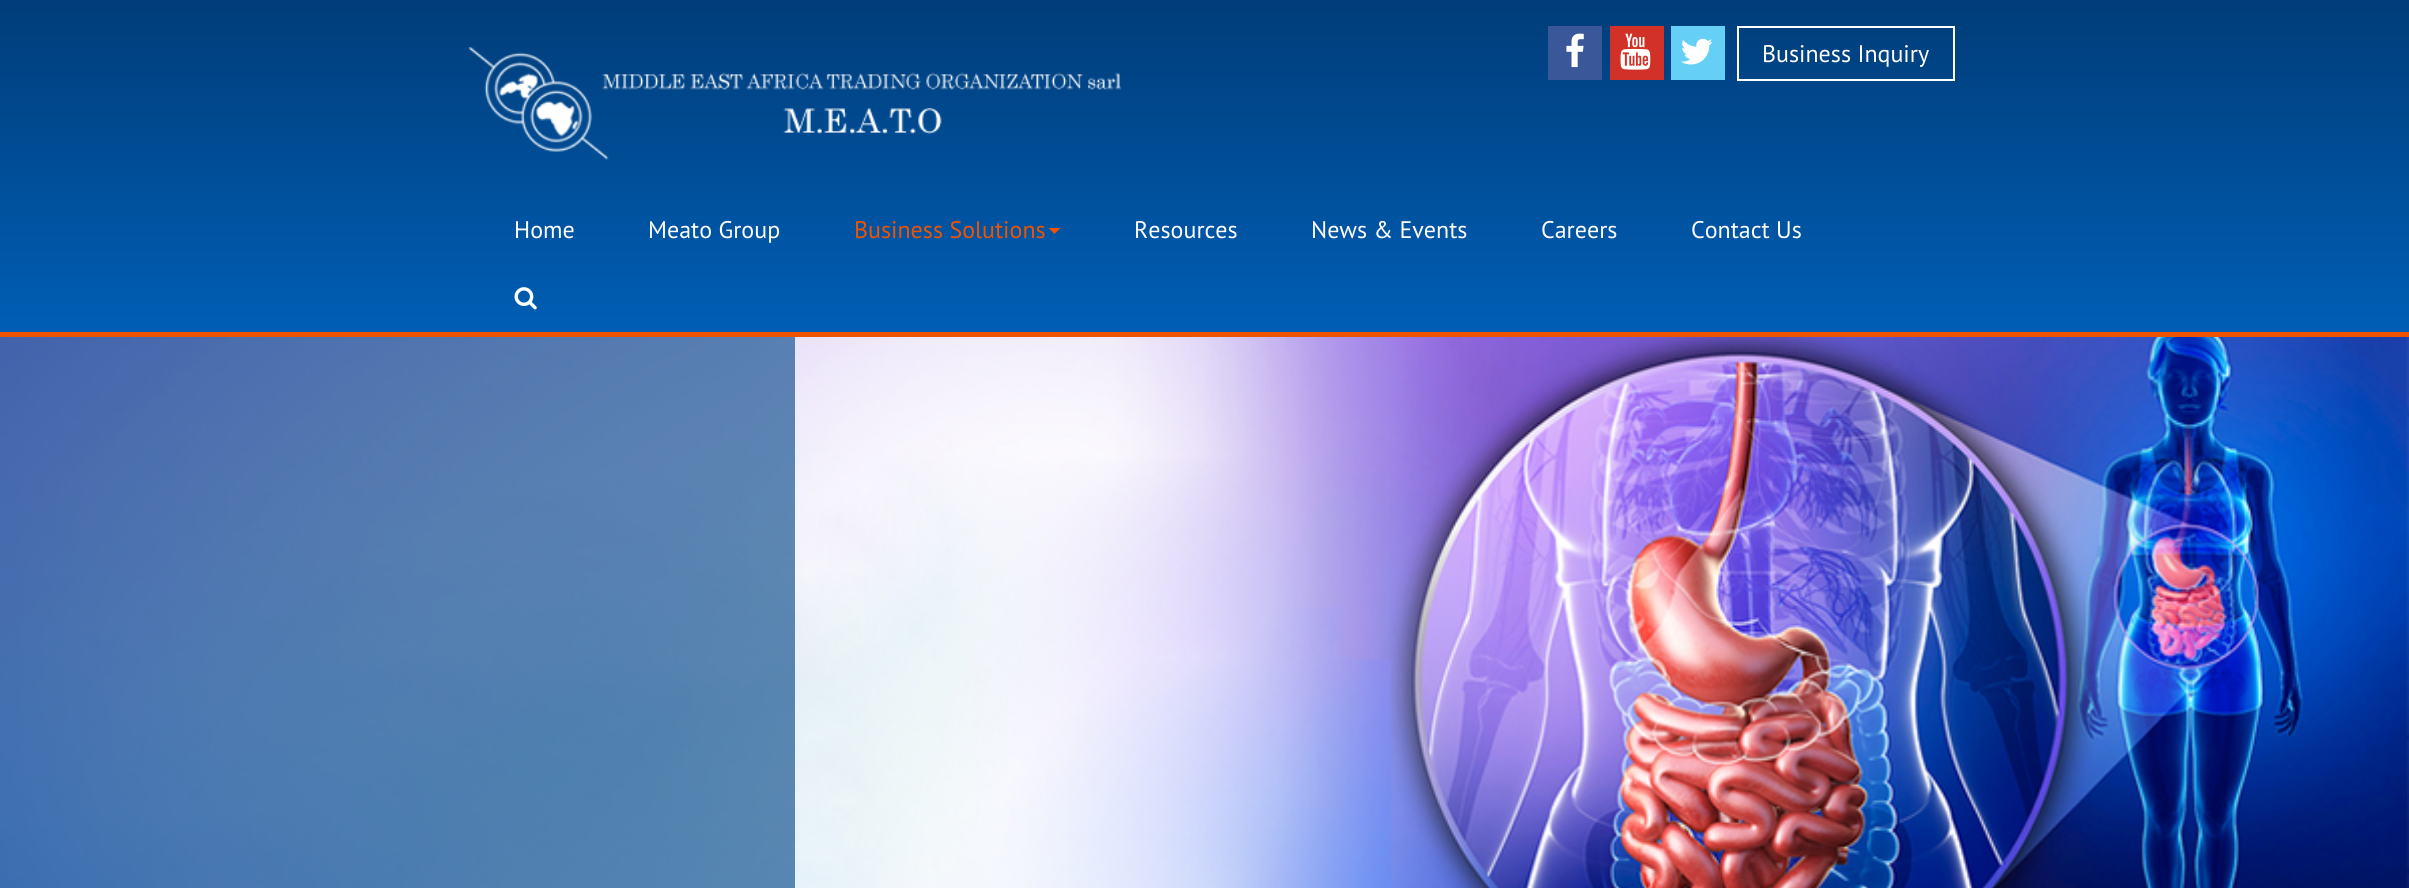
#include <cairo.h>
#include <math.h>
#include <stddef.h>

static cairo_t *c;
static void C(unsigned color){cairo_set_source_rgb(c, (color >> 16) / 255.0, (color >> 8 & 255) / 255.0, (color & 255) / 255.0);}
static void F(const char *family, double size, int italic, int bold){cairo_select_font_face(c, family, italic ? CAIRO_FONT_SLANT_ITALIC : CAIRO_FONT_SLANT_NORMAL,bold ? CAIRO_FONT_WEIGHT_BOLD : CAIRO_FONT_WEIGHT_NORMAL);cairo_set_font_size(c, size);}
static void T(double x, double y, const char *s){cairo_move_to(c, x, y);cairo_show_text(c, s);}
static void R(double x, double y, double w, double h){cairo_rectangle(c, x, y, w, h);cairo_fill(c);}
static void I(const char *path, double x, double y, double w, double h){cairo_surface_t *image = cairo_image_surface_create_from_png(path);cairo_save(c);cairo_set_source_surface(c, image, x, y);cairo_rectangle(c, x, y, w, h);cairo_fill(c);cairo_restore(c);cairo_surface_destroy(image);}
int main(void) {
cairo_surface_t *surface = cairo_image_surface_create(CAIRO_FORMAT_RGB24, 2409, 888);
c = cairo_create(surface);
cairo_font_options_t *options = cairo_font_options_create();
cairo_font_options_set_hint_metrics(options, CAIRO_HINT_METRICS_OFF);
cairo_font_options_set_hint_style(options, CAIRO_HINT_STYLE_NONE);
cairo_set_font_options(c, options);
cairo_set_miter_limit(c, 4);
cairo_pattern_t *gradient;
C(0xffffff);
cairo_paint(c);
gradient = cairo_pattern_create_linear(1205,0,1205,332);
cairo_pattern_add_color_stop_rgba(gradient,0,0,0.239,0.475,1);
cairo_pattern_add_color_stop_rgba(gradient,1,0,0.369,0.71,1);
cairo_set_source(c,gradient);
cairo_pattern_destroy(gradient);
R(0,0,2409,332);
C(0xed5401);
R(0,332,2409,5);
I("1.png",468,47,653,113);
C(0x3a579a);
R(1548,26,54,54);
I("2.png",1566,33,18,35);
C(0xd13126);
R(1610,26,54,54);
I("3.png",1620,33,31,37);
C(0x65cff6);
R(1671,26,54,54);
I("4.png",1681,38,32,27);
cairo_rectangle(c,1738,27,216,53);
C(0xffffff);
cairo_stroke(c);
F("PT Sans",24,0,0);
T(1762,62,"Business Inquiry");
T(514,238,"Home");
T(648,238,"Meato Group");
C(0xed5401);
T(854,238,"Business Solutions");
cairo_new_path(c);
cairo_move_to(c,1048.5,228);
cairo_line_to(c,1060.5,228);
cairo_line_to(c,1054.5,234);
cairo_close_path(c);
cairo_fill(c);
C(0xffffff);
T(1134,238,"Resources");
T(1311,238,"News & Events");
T(1541,238,"Careers");
T(1691,238,"Contact Us");
I("5.png",514,287,23,23);
I("6.png",0,337,2409,551);
cairo_set_source_rgba(c,0,0.267,0.529,0.62);
R(0,337,795,551);
cairo_surface_write_to_png(surface, "o.png");
cairo_font_options_destroy(options);
cairo_destroy(c);
cairo_surface_destroy(surface);
return 0;
}
